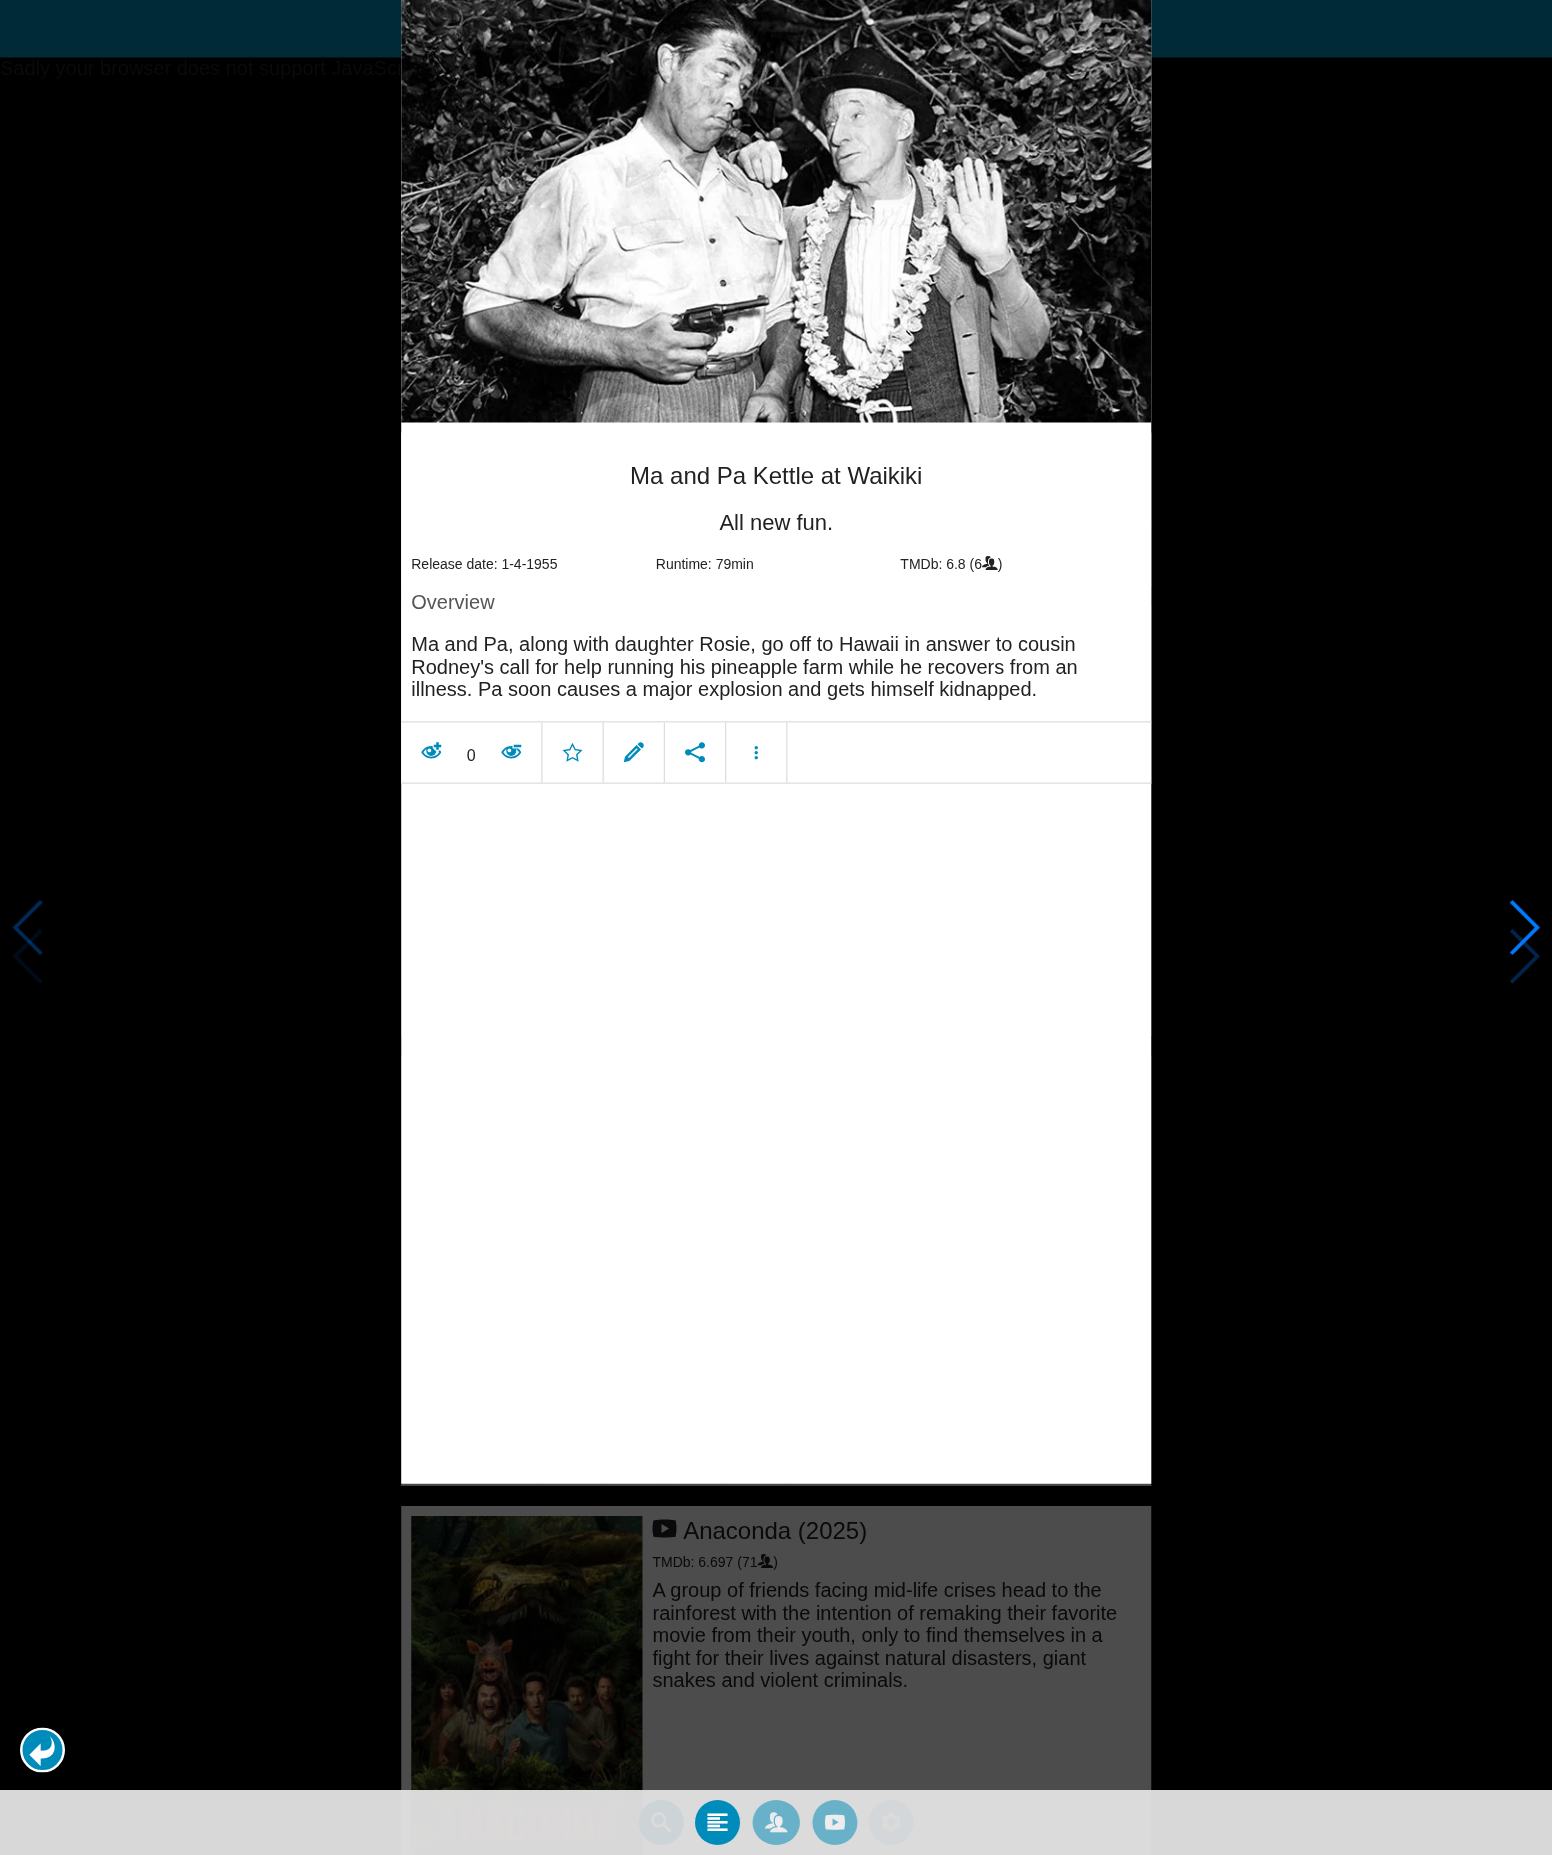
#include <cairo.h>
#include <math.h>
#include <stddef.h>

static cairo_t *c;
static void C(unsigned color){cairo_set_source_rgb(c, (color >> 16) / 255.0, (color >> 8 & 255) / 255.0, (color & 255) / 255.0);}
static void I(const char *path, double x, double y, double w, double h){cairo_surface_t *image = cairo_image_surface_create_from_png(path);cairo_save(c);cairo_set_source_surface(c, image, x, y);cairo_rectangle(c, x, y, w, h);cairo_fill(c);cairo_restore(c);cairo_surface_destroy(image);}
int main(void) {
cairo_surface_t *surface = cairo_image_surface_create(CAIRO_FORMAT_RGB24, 1552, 1855);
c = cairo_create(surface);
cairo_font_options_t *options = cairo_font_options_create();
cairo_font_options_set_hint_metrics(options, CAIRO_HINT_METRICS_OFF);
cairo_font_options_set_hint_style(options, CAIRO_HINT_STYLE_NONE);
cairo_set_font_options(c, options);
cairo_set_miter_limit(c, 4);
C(0xffffff);
cairo_paint(c);
I("1.png",0,0,1552,1855);
cairo_surface_write_to_png(surface, "o.png");
cairo_font_options_destroy(options);
cairo_destroy(c);
cairo_surface_destroy(surface);
return 0;
}
